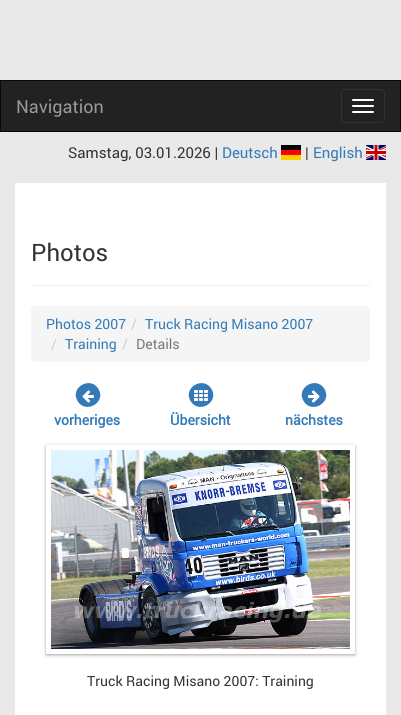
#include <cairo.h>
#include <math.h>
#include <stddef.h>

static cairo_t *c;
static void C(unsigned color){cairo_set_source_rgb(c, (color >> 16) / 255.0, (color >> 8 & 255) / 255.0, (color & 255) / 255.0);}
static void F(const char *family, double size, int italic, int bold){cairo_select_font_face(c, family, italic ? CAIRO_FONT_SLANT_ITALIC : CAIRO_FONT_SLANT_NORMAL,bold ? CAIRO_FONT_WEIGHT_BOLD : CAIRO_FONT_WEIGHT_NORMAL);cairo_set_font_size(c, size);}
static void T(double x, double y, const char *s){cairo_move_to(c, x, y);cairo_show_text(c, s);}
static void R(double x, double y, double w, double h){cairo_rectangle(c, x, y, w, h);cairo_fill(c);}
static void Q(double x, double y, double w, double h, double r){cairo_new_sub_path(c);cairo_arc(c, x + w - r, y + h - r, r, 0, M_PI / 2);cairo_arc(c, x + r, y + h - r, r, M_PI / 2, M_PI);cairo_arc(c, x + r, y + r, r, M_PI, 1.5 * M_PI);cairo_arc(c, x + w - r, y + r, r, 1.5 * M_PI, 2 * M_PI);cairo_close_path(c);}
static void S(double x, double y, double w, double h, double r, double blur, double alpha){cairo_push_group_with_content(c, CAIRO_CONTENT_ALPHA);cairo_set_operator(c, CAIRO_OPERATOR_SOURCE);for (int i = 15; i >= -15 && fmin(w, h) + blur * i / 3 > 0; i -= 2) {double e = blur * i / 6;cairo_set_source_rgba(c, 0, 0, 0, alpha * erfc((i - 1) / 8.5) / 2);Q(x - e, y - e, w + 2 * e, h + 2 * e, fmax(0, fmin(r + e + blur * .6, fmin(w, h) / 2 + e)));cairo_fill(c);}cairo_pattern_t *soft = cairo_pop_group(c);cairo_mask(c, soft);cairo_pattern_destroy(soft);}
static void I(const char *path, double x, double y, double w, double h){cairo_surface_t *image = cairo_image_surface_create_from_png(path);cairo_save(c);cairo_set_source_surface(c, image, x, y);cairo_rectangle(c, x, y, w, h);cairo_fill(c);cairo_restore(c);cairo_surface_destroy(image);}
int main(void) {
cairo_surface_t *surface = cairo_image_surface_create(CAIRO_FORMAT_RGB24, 401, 715);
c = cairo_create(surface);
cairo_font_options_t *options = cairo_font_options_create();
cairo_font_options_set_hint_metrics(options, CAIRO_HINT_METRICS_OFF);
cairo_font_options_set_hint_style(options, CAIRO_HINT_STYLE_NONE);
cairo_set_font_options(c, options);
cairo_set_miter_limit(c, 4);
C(0xe9e9e9);
cairo_paint(c);
C(0x222222);
cairo_rectangle(c,.5,80.5,400,51);
cairo_fill_preserve(c);
C(0x080808);
cairo_set_line_width(c,1);
cairo_stroke(c);
F("Roboto",18,0,0);
C(0x999999);
T(16,113,"Navigation");
Q(341.5,89.5,43,33,3.5);
C(0x333333);
cairo_stroke(c);
C(0xffffff);
Q(352,99,22,2,1);
cairo_fill(c);
Q(352,105,22,2,1);
cairo_fill(c);
Q(352,111,22,2,1);
cairo_fill(c);
F("Roboto",15,0,0);
C(0x333333);
T(68,158,"Samstag, 03.01.2026 |");
C(0x337ab7);
T(222,158,"Deutsch");
C(0xffcc00);
R(281,155,20,5);
C(0x000000);
R(281,145,20,5);
C(0xff0000);
R(281,150,20,5);
C(0x333333);
T(305,158,"|");
C(0x337ab7);
T(313,158,"English");
I("1.png",366,145,20,15);
C(0xffffff);
R(15,183,371,532);
C(0xeeeeee);
R(31,285,339,1);
F("Roboto",24,0,0);
C(0x333333);
T(31,261,"Photos");
C(0xf5f5f5);
Q(31,306,339,56,4);
cairo_fill(c);
F("Roboto",14,0,0);
C(0x337ab7);
T(46,329,"Photos 2007");
C(0xcccccc);
T(131,329,"/");
C(0x337ab7);
T(145,329,"Truck Racing Misano 2007");
C(0xcccccc);
T(51,349,"/");
C(0x337ab7);
T(65,349,"Training");
C(0xcccccc);
T(122,349,"/");
C(0x777777);
T(136,349,"Details");
C(0x337ab7);
cairo_new_path(c);
cairo_move_to(c,98.5,389);
cairo_curve_to(c,106.5,402.5,85.5,414.5,77.5,401);
cairo_curve_to(c,69.5,387.5,90.5,375.5,98.5,389);
cairo_close_path(c);
cairo_fill(c);
I("2.png",82,390,12,13);
F("Roboto",14,0,1);
T(54,425,"vorheriges");
cairo_new_path(c);
cairo_move_to(c,211.5,389);
cairo_curve_to(c,219.5,402.5,198.5,414.5,190.5,401);
cairo_curve_to(c,182.5,387.5,203.5,375.5,211.5,389);
cairo_close_path(c);
cairo_fill(c);
I("3.png",194,390,14,11);
T(170,425,"Übersicht");
cairo_new_path(c);
cairo_move_to(c,324.5,389);
cairo_curve_to(c,332.5,402.5,311.5,414.5,303.5,401);
cairo_curve_to(c,295.5,387.5,316.5,375.5,324.5,389);
cairo_close_path(c);
cairo_fill(c);
I("4.png",308,390,12,13);
T(285,425,"nächstes");
cairo_save(c);
cairo_set_fill_rule(c,CAIRO_FILL_RULE_EVEN_ODD);
cairo_new_path(c);
cairo_move_to(c,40,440);
cairo_line_to(c,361,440);
cairo_line_to(c,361,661);
cairo_line_to(c,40,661);
cairo_close_path(c);
cairo_move_to(c,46,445);
cairo_line_to(c,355,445);
cairo_line_to(c,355,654);
cairo_line_to(c,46,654);
cairo_close_path(c);
cairo_clip(c);
C(0x221919);
S(46,446,309,209,0,1.5,.4);
cairo_restore(c);
I("5.png",51,450,299,199);
F("Roboto",14,0,0);
C(0x333333);
T(87,686,"Truck Racing Misano 2007: Training");
cairo_surface_write_to_png(surface, "o.png");
cairo_font_options_destroy(options);
cairo_destroy(c);
cairo_surface_destroy(surface);
return 0;
}
